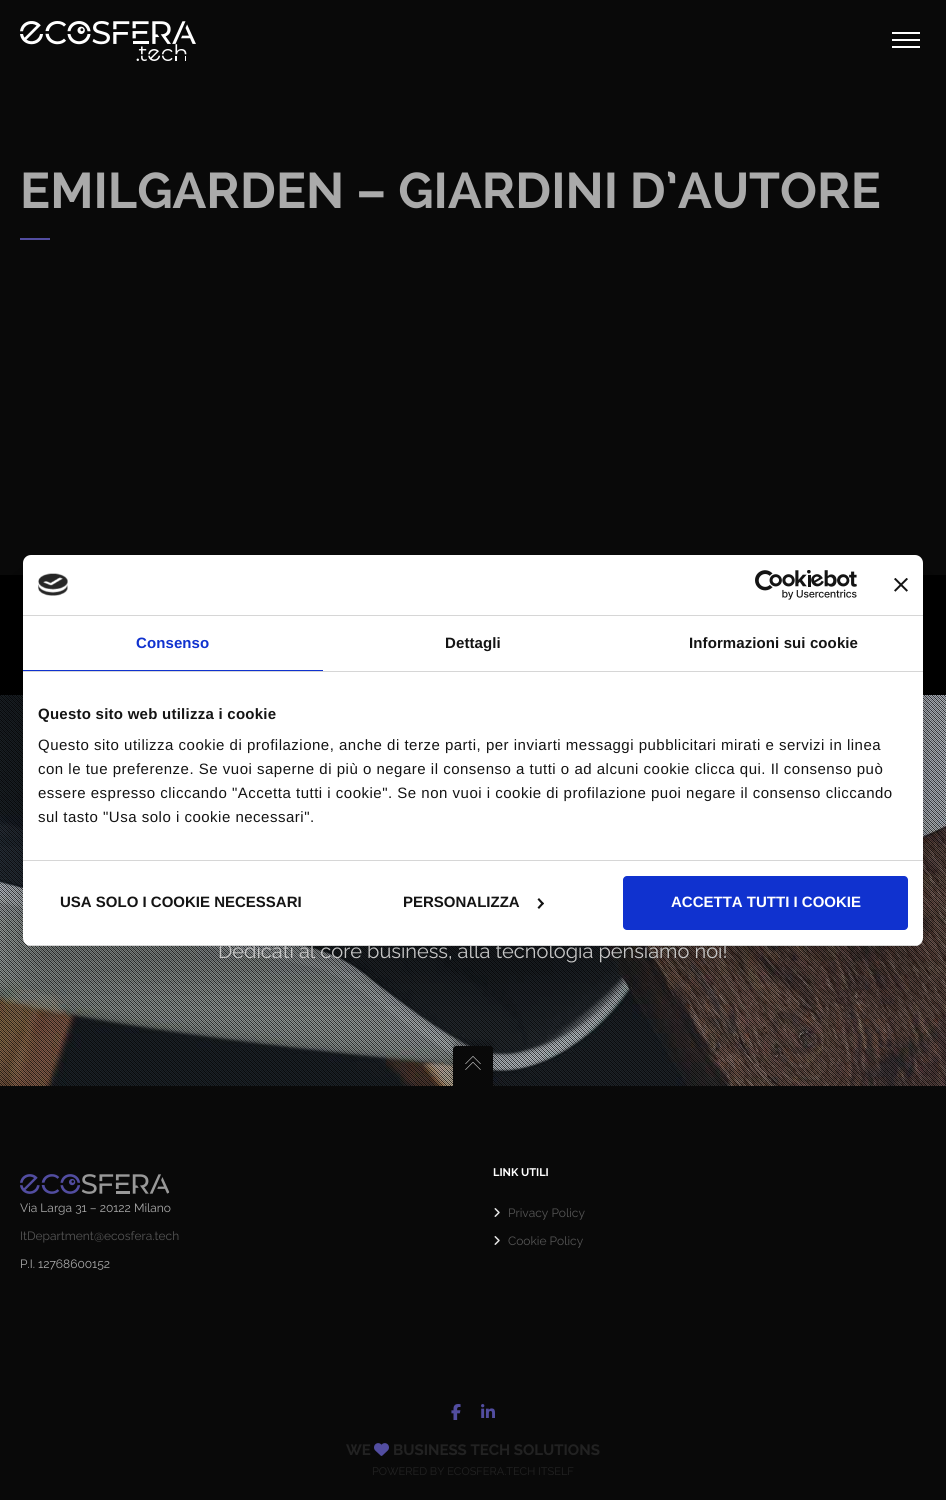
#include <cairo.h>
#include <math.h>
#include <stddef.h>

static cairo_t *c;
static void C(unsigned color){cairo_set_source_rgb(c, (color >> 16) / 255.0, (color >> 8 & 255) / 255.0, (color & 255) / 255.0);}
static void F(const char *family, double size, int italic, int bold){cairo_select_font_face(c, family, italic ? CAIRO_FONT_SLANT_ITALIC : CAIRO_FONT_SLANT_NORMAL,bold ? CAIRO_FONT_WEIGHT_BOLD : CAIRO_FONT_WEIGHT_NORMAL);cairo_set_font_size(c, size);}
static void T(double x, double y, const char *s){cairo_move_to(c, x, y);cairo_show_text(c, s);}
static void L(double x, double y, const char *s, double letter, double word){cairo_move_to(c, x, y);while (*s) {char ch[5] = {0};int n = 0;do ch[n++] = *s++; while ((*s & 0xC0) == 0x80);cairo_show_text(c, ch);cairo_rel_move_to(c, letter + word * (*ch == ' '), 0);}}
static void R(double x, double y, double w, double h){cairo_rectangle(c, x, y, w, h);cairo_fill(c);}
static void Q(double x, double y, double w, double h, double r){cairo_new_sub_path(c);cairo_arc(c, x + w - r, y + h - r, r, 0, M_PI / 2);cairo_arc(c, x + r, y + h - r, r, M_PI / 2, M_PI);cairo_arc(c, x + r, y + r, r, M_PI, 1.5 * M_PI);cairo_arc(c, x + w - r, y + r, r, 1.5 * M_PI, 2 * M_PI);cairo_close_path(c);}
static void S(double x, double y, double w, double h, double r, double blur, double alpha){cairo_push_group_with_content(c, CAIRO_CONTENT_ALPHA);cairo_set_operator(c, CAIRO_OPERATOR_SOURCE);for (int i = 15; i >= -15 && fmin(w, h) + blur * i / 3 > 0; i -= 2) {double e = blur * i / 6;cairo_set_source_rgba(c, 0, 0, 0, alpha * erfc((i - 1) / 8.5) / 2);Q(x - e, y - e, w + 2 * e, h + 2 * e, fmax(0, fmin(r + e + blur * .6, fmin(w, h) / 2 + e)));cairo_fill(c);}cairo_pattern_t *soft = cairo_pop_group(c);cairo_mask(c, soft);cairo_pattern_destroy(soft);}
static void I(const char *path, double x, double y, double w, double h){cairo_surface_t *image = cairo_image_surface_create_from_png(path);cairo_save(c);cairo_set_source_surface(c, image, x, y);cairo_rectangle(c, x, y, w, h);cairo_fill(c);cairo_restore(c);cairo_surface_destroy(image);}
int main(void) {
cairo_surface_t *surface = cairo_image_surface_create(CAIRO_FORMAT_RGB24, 946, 1500);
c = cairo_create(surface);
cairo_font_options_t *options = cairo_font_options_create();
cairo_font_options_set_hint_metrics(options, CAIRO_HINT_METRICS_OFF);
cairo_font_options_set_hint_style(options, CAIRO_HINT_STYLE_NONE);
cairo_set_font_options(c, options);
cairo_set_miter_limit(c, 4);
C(0x090909);
cairo_paint(c);
I("1.png",20,21,176,40);
C(0xffffff);
R(892,39,28,2);
R(892,32,28,2);
R(892,46,28,2);
F("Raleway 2",50,0,1);
C(0xaaaaaa);
T(20,208,"EMILGARDEN – GIARDINI D’AUTORE");
C(0x524da0);
R(20,238,30,2);
C(0x000000);
R(0,575,946,120);
I("2.png",0,695,946,391);
I("3.png",0,695,946,391);
F("Raleway",20,0,0);
C(0xffffff);
T(218,958,"Dedicati al core business, alla tecnologia pensiamo noi!");
C(0x000000);
S(453,1041,40,40,3,2.5,.2);
C(0x090909);
cairo_new_path(c);
cairo_move_to(c,456,1046);
cairo_line_to(c,490,1046);
cairo_curve_to(c,491.5,1046,493,1047.5,493,1049);
cairo_line_to(c,493,1086);
cairo_line_to(c,453,1086);
cairo_line_to(c,453,1049);
cairo_curve_to(c,453,1047.5,454.5,1046,456,1046);
cairo_close_path(c);
cairo_fill(c);
I("7.png",465,1056,16,14);
C(0x000000);
S(23,587,900,391,8,34,.3);
C(0xffffff);
Q(23,555,900,391,8);
cairo_fill(c);
C(0xd6d6d6);
R(23,615,900,1);
I("4.png",38,573,30,23);
I("5.png",755,570,102,30);
I("6.png",894,578,14,14);
R(23,671,900,1);
C(0x1032cf);
R(23,670,300,1);
F("Liberation Sans",15,0,1);
L(136,648,"Consenso",.1,0);
C(0x141414);
L(445,648,"Dettagli",.1,0);
L(689,648,"Informazioni sui cookie",.1,0);
C(0xd6d6d6);
R(23,860,900,1);
C(0x141414);
L(38,719,"Questo sito web utilizza i cookie",.25,0);
F("Liberation Sans",15,0,0);
L(38,750,"Questo sito utilizza cookie di profilazione, anche di terze parti, per inviarti messaggi pubblicitari mirati e servizi in linea",.5,0);
L(38,774,"con le tue preferenze. Se vuoi saperne di più o negare il consenso a tutti o ad alcuni cookie clicca qui. Il consenso può",.5,0);
L(38,798,"essere espresso cliccando \"Accetta tutti i cookie\". Se non vuoi i cookie di profilazione puoi negare il consenso cliccando",.5,0);
L(38,822,"sul tasto \"Usa solo i cookie necessari\".",.5,0);
cairo_save(c);
Q(23,555,900,391,8);
cairo_clip(c);
C(0xd6d6d6);
R(23,945,900,1);
cairo_restore(c);
F("Liberation Sans",15,0,1);
T(60,907,"USA SOLO I COOKIE NECESSARI");
T(403,907,"PERSONALIZZA");
cairo_new_path(c);
cairo_move_to(c,539,898);
cairo_line_to(c,544,903.5);
cairo_line_to(c,542.5,905);
cairo_line_to(c,537.5,899.5);
cairo_close_path(c);
cairo_fill(c);
cairo_new_path(c);
cairo_move_to(c,542.5,902);
cairo_line_to(c,544,903.5);
cairo_line_to(c,539,909);
cairo_line_to(c,537.5,907.5);
cairo_close_path(c);
cairo_fill(c);
C(0x1032cf);
Q(623,876,285,54,4);
cairo_fill(c);
C(0xffffff);
T(671,907,"ACCETTA TUTTI I COOKIE");
I("8.png",20,1174,150,20);
F("Raleway",12,0,0);
C(0xaaaaaa);
T(20,1212,"Via Larga 31 – 20122 Milano");
C(0x555555);
T(20,1240,"ItDepartment@ecosfera.tech");
C(0xaaaaaa);
T(20,1268,"P.I. 12768600152");
F("Raleway",11,0,1);
C(0xffffff);
T(493,1176,"LINK UTILI");
I("9.png",494,1208,6,9);
F("Raleway",12,0,0);
C(0x555555);
T(508,1217,"Privacy Policy");
I("9.png",494,1236,6,9);
T(508,1245,"Cookie Policy");
I("10.png",451,1404,10,16);
I("11.png",481,1404,14,14);
F("Raleway",15,0,1);
C(0x222222);
T(346,1455,"WE");
I("12.png",374,1443,15,13);
T(393,1455,"BUSINESS TECH SOLUTIONS");
F("Raleway",11,0,0);
T(372,1475,"POWERED BY ECOSFERA.TECH ITSELF");
cairo_surface_write_to_png(surface, "o.png");
cairo_font_options_destroy(options);
cairo_destroy(c);
cairo_surface_destroy(surface);
return 0;
}
